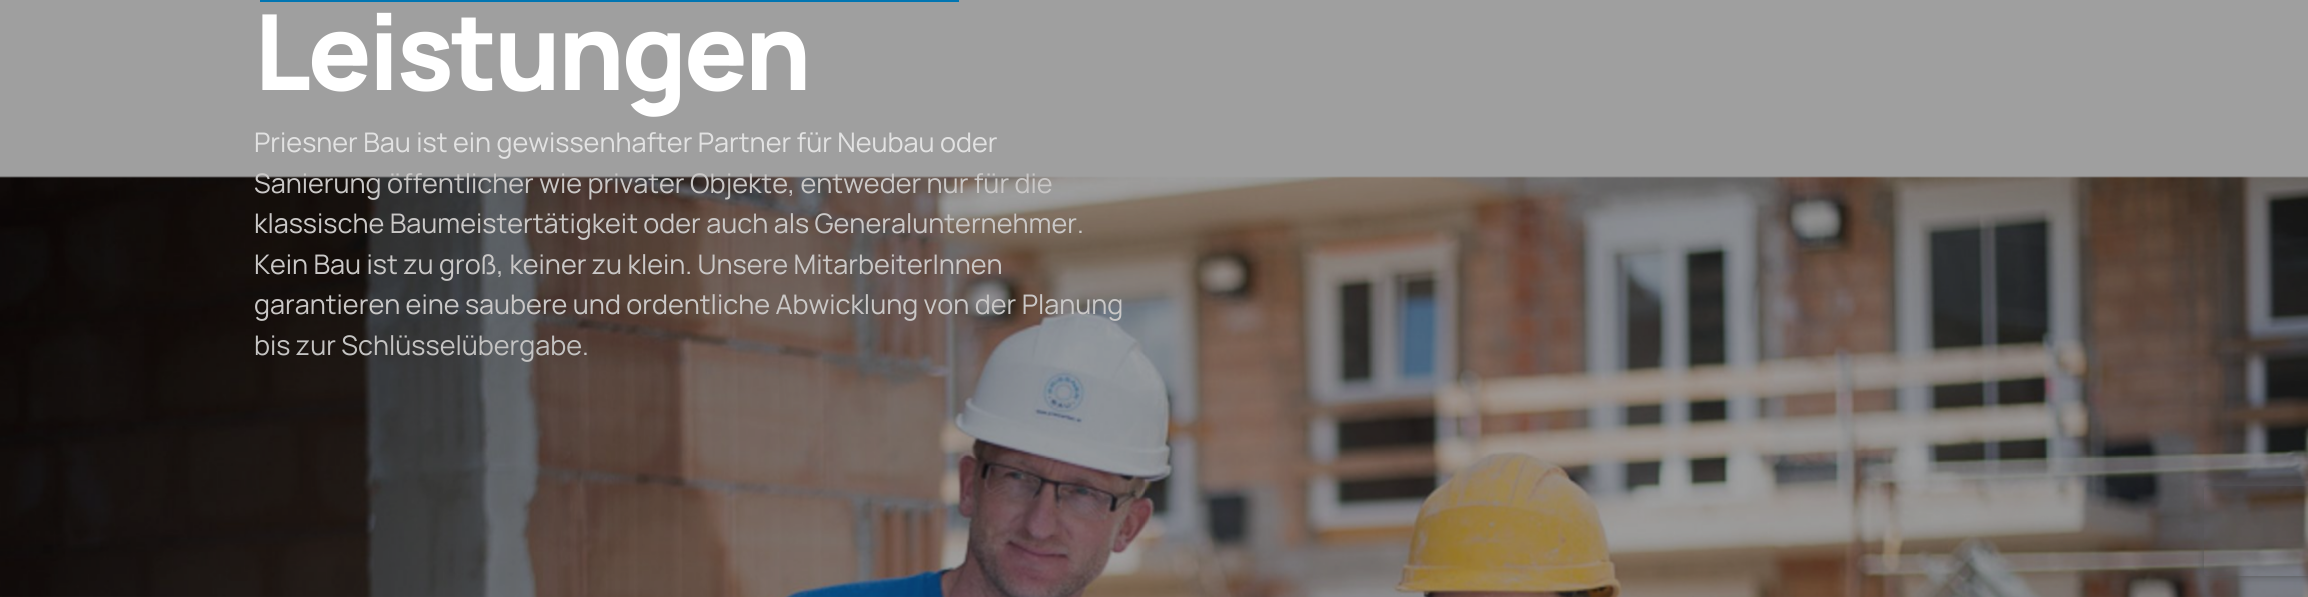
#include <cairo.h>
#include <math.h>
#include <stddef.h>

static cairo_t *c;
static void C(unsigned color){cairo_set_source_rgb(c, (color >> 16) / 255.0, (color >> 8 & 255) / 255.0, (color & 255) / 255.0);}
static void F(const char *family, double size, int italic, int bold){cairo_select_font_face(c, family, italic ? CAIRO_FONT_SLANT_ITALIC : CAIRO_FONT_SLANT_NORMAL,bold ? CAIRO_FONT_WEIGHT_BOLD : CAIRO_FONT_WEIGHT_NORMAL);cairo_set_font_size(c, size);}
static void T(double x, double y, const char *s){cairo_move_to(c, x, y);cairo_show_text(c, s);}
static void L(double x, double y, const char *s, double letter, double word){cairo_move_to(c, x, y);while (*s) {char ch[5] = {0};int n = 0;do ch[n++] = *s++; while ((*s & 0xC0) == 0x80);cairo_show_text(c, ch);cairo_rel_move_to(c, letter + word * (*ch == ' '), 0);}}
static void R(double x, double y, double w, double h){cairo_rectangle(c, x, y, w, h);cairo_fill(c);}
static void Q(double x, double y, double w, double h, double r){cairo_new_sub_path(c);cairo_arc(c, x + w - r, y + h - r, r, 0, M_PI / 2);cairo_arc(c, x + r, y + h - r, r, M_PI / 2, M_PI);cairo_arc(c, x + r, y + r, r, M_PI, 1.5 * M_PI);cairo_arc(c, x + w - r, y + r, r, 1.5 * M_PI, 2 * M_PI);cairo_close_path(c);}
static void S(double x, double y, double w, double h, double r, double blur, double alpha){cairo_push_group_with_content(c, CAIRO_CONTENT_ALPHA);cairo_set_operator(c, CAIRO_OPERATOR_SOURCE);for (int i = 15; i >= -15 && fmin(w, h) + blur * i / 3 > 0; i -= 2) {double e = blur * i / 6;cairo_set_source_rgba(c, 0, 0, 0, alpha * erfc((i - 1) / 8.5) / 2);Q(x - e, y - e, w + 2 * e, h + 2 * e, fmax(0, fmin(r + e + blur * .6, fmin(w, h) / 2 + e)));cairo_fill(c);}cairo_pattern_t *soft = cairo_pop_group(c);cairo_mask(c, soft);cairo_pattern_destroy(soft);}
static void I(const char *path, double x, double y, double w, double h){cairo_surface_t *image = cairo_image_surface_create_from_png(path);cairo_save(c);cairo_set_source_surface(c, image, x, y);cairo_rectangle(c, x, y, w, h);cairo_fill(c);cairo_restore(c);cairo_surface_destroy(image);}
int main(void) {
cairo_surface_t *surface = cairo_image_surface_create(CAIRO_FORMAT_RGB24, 2308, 597);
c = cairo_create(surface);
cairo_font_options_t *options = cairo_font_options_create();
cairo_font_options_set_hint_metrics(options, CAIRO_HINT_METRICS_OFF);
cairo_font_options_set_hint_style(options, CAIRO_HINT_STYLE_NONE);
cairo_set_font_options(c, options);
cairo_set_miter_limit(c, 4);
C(0x9f9f9f);
cairo_paint(c);
C(0x0075b2);
R(260,0,699,2);
F("Manrope ExtraBold",105,0,0);
C(0xffffff);
L(254,90,"Leistungen",-3.1,0);
F("Manrope",27,0,0);
C(0xe2e2e2);
T(254,152,"Priesner Bau ist ein gewissenhafter Partner für Neubau oder");
I("1.png",0,176,2308,421);
C(0xcac8c7);
T(254,193,"Sanierung öffentlicher wie privater Objekte, entweder nur für die");
T(254,233,"klassische Baumeistertätigkeit oder auch als Generalunternehmer.");
T(254,274,"Kein Bau ist zu groß, keiner zu klein. Unsere MitarbeiterInnen");
T(254,314,"garantieren eine saubere und ordentliche Abwicklung von der Planung");
C(0xc4c3c2);
T(254,355,"bis zur Schlüsselübergabe.");
cairo_save(c);
cairo_set_fill_rule(c,CAIRO_FILL_RULE_EVEN_ODD);
cairo_new_path(c);
cairo_move_to(c,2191,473);
cairo_line_to(c,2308,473);
cairo_line_to(c,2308,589);
cairo_line_to(c,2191,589);
cairo_close_path(c);
cairo_move_to(c,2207,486);
cairo_line_to(c,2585,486);
cairo_curve_to(c,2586.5,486,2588,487.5,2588,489);
cairo_line_to(c,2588,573);
cairo_curve_to(c,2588,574.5,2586.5,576,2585,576);
cairo_line_to(c,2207,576);
cairo_curve_to(c,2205.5,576,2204,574.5,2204,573);
cairo_line_to(c,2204,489);
cairo_curve_to(c,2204,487.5,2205.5,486,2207,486);
cairo_close_path(c);
cairo_clip(c);
C(0x535353);
S(2204,486,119,90,3,4,1);
cairo_restore(c);
cairo_surface_write_to_png(surface, "o.png");
cairo_font_options_destroy(options);
cairo_destroy(c);
cairo_surface_destroy(surface);
return 0;
}
